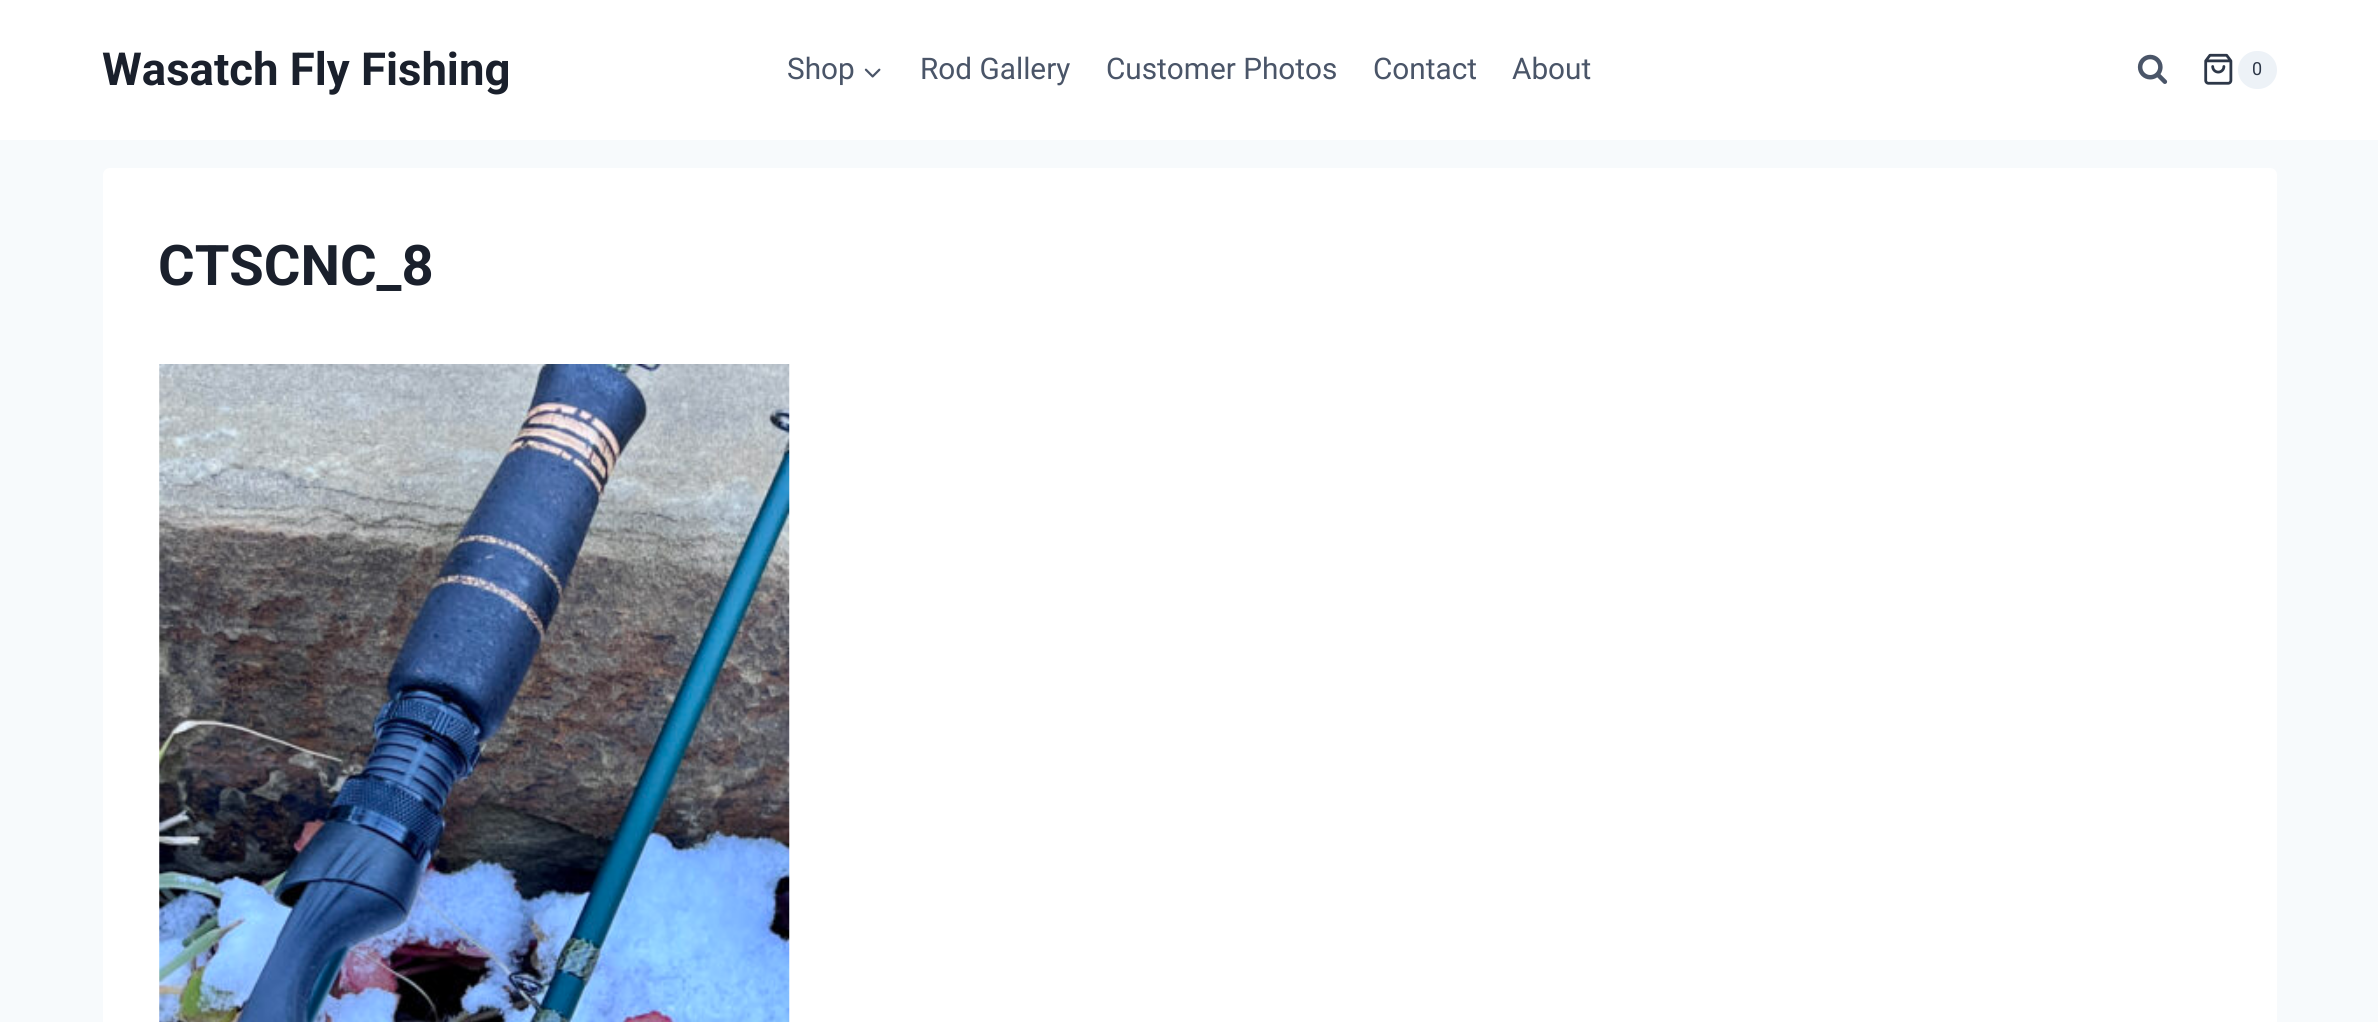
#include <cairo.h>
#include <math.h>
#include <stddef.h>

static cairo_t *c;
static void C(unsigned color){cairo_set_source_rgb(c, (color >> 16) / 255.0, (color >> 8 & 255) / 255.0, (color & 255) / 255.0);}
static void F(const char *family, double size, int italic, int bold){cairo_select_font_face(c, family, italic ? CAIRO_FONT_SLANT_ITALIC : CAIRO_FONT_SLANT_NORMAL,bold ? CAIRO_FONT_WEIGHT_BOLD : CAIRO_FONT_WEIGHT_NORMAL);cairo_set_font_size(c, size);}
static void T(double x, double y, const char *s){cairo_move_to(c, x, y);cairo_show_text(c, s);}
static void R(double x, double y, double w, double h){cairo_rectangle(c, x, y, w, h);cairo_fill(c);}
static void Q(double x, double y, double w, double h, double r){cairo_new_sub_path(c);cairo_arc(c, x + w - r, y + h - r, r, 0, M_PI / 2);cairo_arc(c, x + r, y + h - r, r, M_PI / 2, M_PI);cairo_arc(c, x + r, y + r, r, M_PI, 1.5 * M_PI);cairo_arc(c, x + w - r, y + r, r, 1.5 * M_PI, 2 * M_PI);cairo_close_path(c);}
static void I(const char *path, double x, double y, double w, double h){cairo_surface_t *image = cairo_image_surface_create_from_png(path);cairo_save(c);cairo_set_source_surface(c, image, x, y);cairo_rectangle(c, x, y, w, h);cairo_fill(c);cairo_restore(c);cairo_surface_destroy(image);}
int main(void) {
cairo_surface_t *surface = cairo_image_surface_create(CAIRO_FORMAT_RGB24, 2378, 1022);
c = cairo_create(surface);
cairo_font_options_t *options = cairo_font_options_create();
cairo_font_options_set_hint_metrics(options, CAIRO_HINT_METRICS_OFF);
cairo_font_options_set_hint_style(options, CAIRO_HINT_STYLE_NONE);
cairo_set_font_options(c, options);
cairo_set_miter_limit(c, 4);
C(0xf7fafc);
cairo_paint(c);
C(0xffffff);
R(0,0,2378,140);
F("Roboto",45.5,0,1);
C(0x1a202c);
T(102,85,"Wasatch Fly Fishing");
F("Roboto",29.75,0,0);
C(0x4a5568);
T(787,79,"Shop");
I("1.png",864,68,17,10);
T(920,79,"Rod Gallery");
T(1106,79,"Customer Photos");
T(1373,79,"Contact");
T(1512,79,"About");
I("2.png",2137,54,31,30);
I("3.png",2204,53,29,32);
C(0xedf2f7);
Q(2238,51,39,38,19);
cairo_fill(c);
F("Roboto",18,0,0);
C(0x2d3748);
T(2252,75,"0");
C(0xffffff);
Q(103,168,2174,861,7);
cairo_fill(c);
F("Roboto",56,0,1);
C(0x1a202c);
T(158,285,"CTSCNC_8");
I("4.png",159,364,631,658);
cairo_surface_write_to_png(surface, "o.png");
cairo_font_options_destroy(options);
cairo_destroy(c);
cairo_surface_destroy(surface);
return 0;
}
